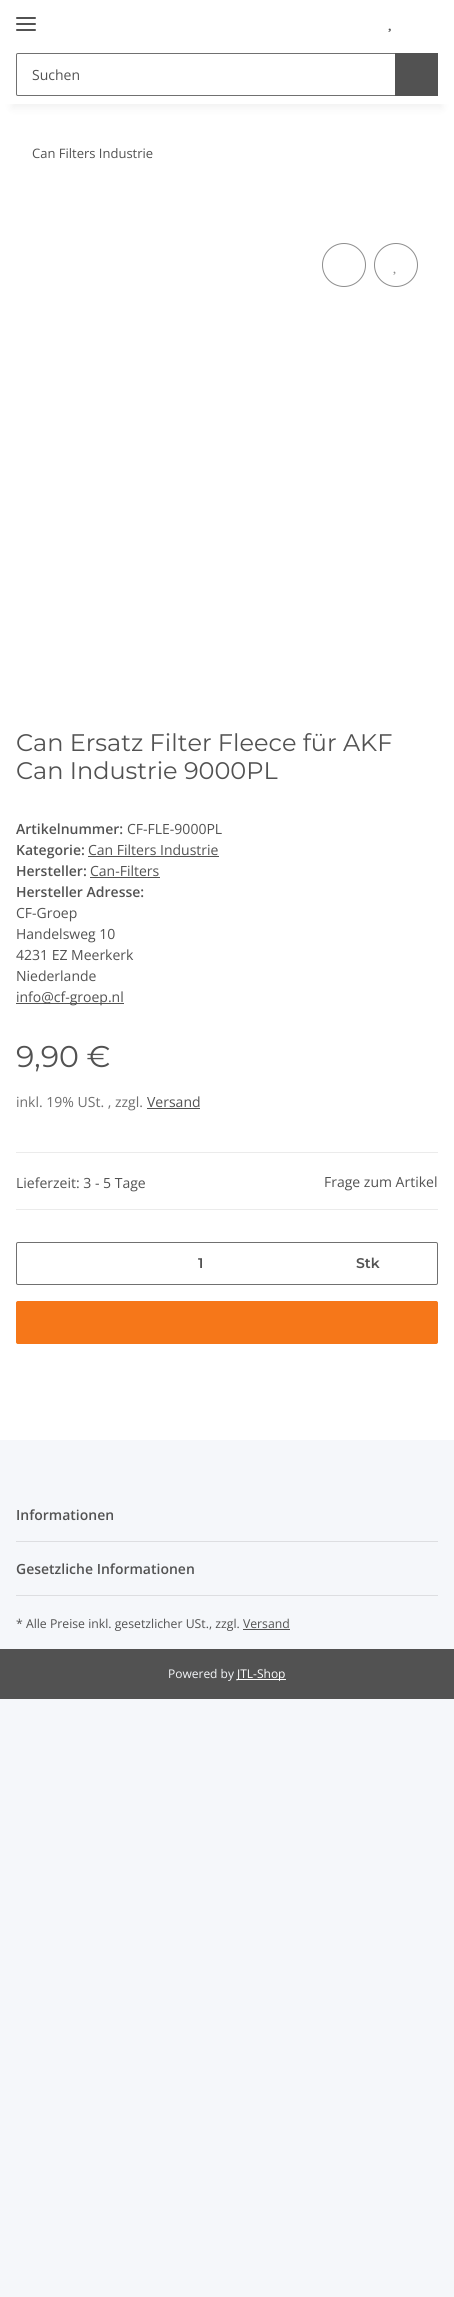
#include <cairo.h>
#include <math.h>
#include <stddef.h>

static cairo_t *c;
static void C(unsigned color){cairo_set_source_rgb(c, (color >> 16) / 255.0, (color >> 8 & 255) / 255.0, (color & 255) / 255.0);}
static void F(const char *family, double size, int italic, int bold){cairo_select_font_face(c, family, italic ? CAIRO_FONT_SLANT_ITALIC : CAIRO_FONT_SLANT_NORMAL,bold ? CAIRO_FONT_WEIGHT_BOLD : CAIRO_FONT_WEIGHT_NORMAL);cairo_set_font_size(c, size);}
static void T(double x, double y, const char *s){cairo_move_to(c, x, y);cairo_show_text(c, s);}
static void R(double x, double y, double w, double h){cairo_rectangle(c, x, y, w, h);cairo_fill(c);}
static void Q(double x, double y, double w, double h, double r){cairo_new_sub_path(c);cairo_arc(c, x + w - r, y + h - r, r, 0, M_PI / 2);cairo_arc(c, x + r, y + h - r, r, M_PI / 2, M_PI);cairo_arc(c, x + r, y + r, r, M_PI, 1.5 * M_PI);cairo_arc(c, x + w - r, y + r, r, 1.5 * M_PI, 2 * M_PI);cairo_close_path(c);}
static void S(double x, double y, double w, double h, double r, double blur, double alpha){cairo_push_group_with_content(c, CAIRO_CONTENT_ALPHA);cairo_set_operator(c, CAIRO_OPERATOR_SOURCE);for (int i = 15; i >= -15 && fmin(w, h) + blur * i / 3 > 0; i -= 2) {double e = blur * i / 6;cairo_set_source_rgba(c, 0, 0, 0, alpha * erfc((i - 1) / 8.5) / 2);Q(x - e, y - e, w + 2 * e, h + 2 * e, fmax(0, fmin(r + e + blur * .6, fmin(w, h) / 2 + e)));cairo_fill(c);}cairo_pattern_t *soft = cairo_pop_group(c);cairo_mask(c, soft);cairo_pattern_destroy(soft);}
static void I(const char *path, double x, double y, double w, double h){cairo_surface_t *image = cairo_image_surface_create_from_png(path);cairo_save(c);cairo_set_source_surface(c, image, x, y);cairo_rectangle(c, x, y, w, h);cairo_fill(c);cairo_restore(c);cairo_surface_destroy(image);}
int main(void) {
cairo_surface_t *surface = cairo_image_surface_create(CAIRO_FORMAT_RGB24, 454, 2297);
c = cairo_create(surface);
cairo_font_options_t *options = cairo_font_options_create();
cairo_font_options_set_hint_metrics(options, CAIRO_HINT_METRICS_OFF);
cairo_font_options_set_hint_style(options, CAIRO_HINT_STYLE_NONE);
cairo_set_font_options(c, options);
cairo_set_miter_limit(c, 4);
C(0xf5f7fa);
cairo_paint(c);
C(0xffffff);
R(0,104,454,1336);
C(0x000000);
S(12,28,430,80,0,4.5,.06);
C(0xffffff);
R(0,0,454,104);
C(0x525252);
Q(16,23,20,2,1);
cairo_fill(c);
Q(16,17,20,2,1);
cairo_fill(c);
Q(16,29,20,2,1);
cairo_fill(c);
I("1.png",388,28,3,4);
cairo_new_path(c);
cairo_move_to(c,18,53.5);
cairo_line_to(c,395.5,53.5);
cairo_line_to(c,395.5,95.5);
cairo_line_to(c,18,95.5);
cairo_curve_to(c,17,95.5,16.5,95,16.5,94);
cairo_line_to(c,16.5,55);
cairo_curve_to(c,16.5,54,17,53.5,18,53.5);
cairo_close_path(c);
C(0x707070);
cairo_set_line_width(c,1);
cairo_stroke(c);
F("Open Sans",14,0,0);
C(0x525252);
T(32,80,"Suchen");
R(395,53,43,43);
F("Open Sans",13,0,0);
T(32,158,"Can Filters Industrie");
cairo_new_path(c);
cairo_arc(c,344,265,21.5,0,2 * M_PI);
C(0x8d8d8d);
cairo_stroke(c);
cairo_arc(c,396,265,21.5,0,2 * M_PI);
cairo_stroke(c);
I("2.png",393,271,3,4);
F("Montserrat",24,0,0);
C(0x525252);
T(16,751,"Can Ersatz Filter Fleece für AKF");
T(16,779,"Can Industrie 9000PL");
F("Open Sans SemiBold",14,0,0);
T(16,834,"Artikelnummer:");
F("Open Sans",14,0,0);
T(127,834,"CF-FLE-9000PL");
F("Open Sans SemiBold",14,0,0);
T(16,855,"Kategorie:");
F("Open Sans",14,0,0);
T(88,855,"Can Filters Industrie");
R(88,856,131,1);
F("Open Sans SemiBold",14,0,0);
T(16,876,"Hersteller:");
F("Open Sans",14,0,0);
T(90,876,"Can-Filters");
R(90,877,70,1);
F("Open Sans SemiBold",14,0,0);
T(16,897,"Hersteller Adresse:");
F("Open Sans",14,0,0);
T(16,918,"CF-Groep");
T(16,939,"Handelsweg 10");
T(16,960,"4231 EZ Meerkerk");
T(16,981,"Niederlande");
R(16,1003,108,1);
T(16,1002,"info@cf-groep.nl");
F("Montserrat",30,0,0);
T(16,1067,"9,90 €");
F("Open Sans",14,0,0);
C(0x707070);
T(16,1107,"inkl. 19% USt. , zzgl.");
C(0x525252);
T(147,1107,"Versand");
R(147,1108,53,1);
C(0xebebeb);
R(16,1152,422,1);
R(16,1209,422,1);
C(0x525252);
T(16,1188,"Lieferzeit: 3 - 5 Tage");
T(324,1187,"Frage zum Artikel");
Q(16.5,1242.5,421,42,1.5);
C(0x707070);
cairo_stroke(c);
F("Montserrat SemiBold",14,0,0);
C(0x525252);
T(198,1268,"1");
T(356,1268,"Stk");
C(0xf67719);
Q(16.5,1301.5,421,42,1.5);
cairo_fill_preserve(c);
cairo_stroke(c);
F("Open Sans SemiBold",14,0,0);
C(0x525252);
T(16,1520,"Informationen");
C(0xdddee1);
R(16,1541,422,1);
C(0x525252);
T(16,1574,"Gesetzliche Informationen");
C(0xdddee1);
R(16,1595,422,1);
F("Open Sans",12.25,0,0);
C(0x525252);
T(16,1628,"* Alle Preise inkl. gesetzlicher USt., zzgl. Versand");
R(243,1629,47,1);
R(0,1649,454,50);
F("Open Sans",12,0,0);
C(0xf5f7fa);
T(168,1678,"Powered by");
C(0xffffff);
R(237,1679,49,1);
T(237,1678,"JTL-Shop");
cairo_surface_write_to_png(surface, "o.png");
cairo_font_options_destroy(options);
cairo_destroy(c);
cairo_surface_destroy(surface);
return 0;
}
